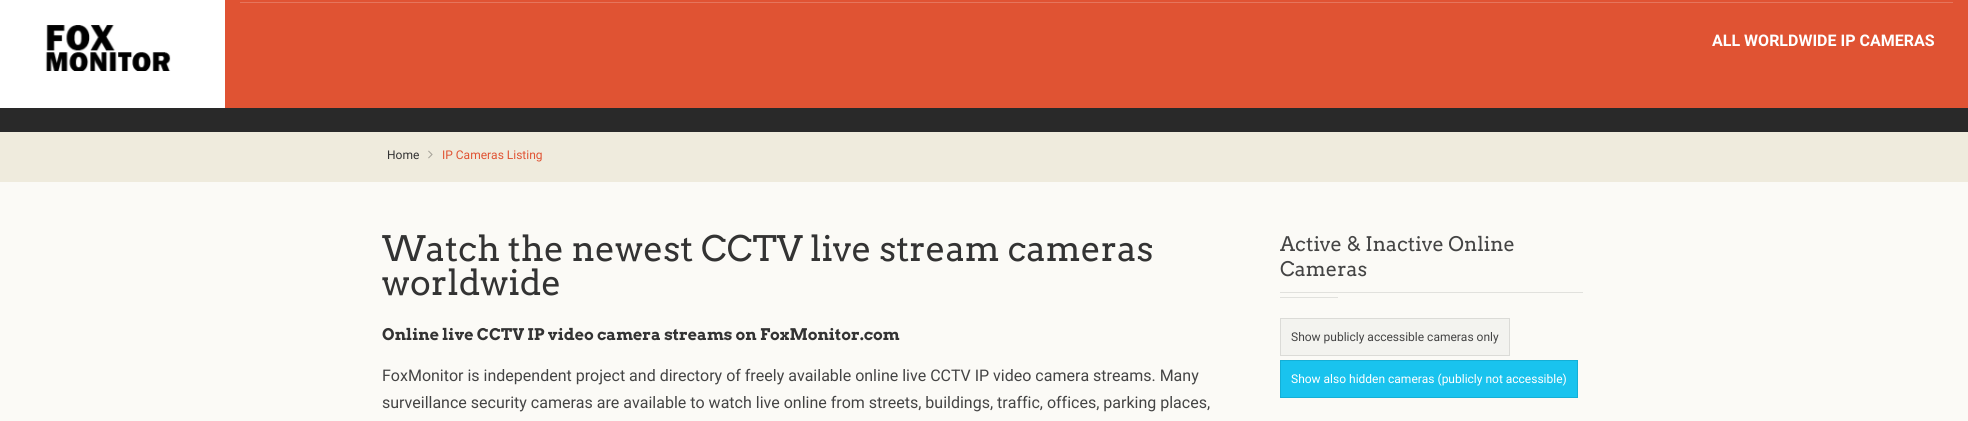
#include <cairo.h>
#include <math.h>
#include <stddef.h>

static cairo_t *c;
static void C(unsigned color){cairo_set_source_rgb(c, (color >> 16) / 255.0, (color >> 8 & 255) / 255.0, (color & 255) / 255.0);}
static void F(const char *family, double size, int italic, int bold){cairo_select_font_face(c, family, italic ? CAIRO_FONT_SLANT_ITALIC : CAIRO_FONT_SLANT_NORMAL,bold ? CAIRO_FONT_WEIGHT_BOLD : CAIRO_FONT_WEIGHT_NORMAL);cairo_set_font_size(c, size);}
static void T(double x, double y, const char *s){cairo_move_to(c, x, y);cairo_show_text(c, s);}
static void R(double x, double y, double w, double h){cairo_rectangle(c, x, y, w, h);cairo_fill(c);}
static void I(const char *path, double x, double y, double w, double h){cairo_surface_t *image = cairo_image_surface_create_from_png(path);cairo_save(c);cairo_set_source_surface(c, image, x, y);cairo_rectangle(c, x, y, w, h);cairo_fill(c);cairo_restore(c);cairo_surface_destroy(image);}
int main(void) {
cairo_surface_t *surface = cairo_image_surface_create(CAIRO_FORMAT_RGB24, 1968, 421);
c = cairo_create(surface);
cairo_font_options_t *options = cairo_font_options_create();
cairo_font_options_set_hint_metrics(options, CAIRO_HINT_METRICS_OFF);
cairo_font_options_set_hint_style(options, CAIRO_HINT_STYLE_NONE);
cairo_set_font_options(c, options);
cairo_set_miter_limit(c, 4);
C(0xe05333);
cairo_paint(c);
C(0xffffff);
R(0,0,225,108);
I("1.png",45,25,126,46);
C(0xe6755c);
R(240,2,1713,1);
F("Roboto",16,0,1);
C(0xffffff);
T(1712,46,"ALL WORLDWIDE IP CAMERAS");
C(0x292929);
R(0,108,1968,24);
C(0xfbfaf6);
R(0,182,1968,239);
C(0xefebdd);
R(0,132,1968,50);
F("Roboto",12,0,0);
C(0x333333);
T(387,159,"Home");
I("2.png",428,150,5,9);
C(0xe05333);
T(442,159,"IP Cameras Listing");
F("Arvo",35,0,0);
C(0x333333);
T(382,261,"Watch the newest CCTV live stream cameras");
T(382,295,"worldwide");
F("Arvo",16,0,1);
T(382,340,"Online live CCTV IP video camera streams on FoxMonitor.com");
F("Roboto",16,0,0);
C(0x444444);
T(382,381,"FoxMonitor is independent project and directory of freely available online live CCTV IP video camera streams. Many");
T(382,408,"surveillance security cameras are available to watch live online from streets, buildings, traffic, offices, parking places,");
C(0xe1e1dd);
R(1280,292,303,1);
F("Arvo",20,0,0);
C(0x444444);
T(1280,251,"Active & Inactive Online");
T(1280,276,"Cameras");
C(0xe1e1dd);
R(1280,297,58,1);
C(0xf3f3ef);
cairo_rectangle(c,1280.5,318.5,229,37);
cairo_fill_preserve(c);
C(0xdbdbd7);
cairo_set_line_width(c,1);
cairo_stroke(c);
F("Roboto",12,0,0);
C(0x444444);
T(1291,341,"Show publicly accessible cameras only");
C(0x19c3ee);
cairo_rectangle(c,1280.5,360.5,297,37);
cairo_fill_preserve(c);
C(0x14afd6);
cairo_stroke(c);
C(0xffffff);
T(1291,383,"Show also hidden cameras (publicly not accessible)");
cairo_surface_write_to_png(surface, "o.png");
cairo_font_options_destroy(options);
cairo_destroy(c);
cairo_surface_destroy(surface);
return 0;
}
